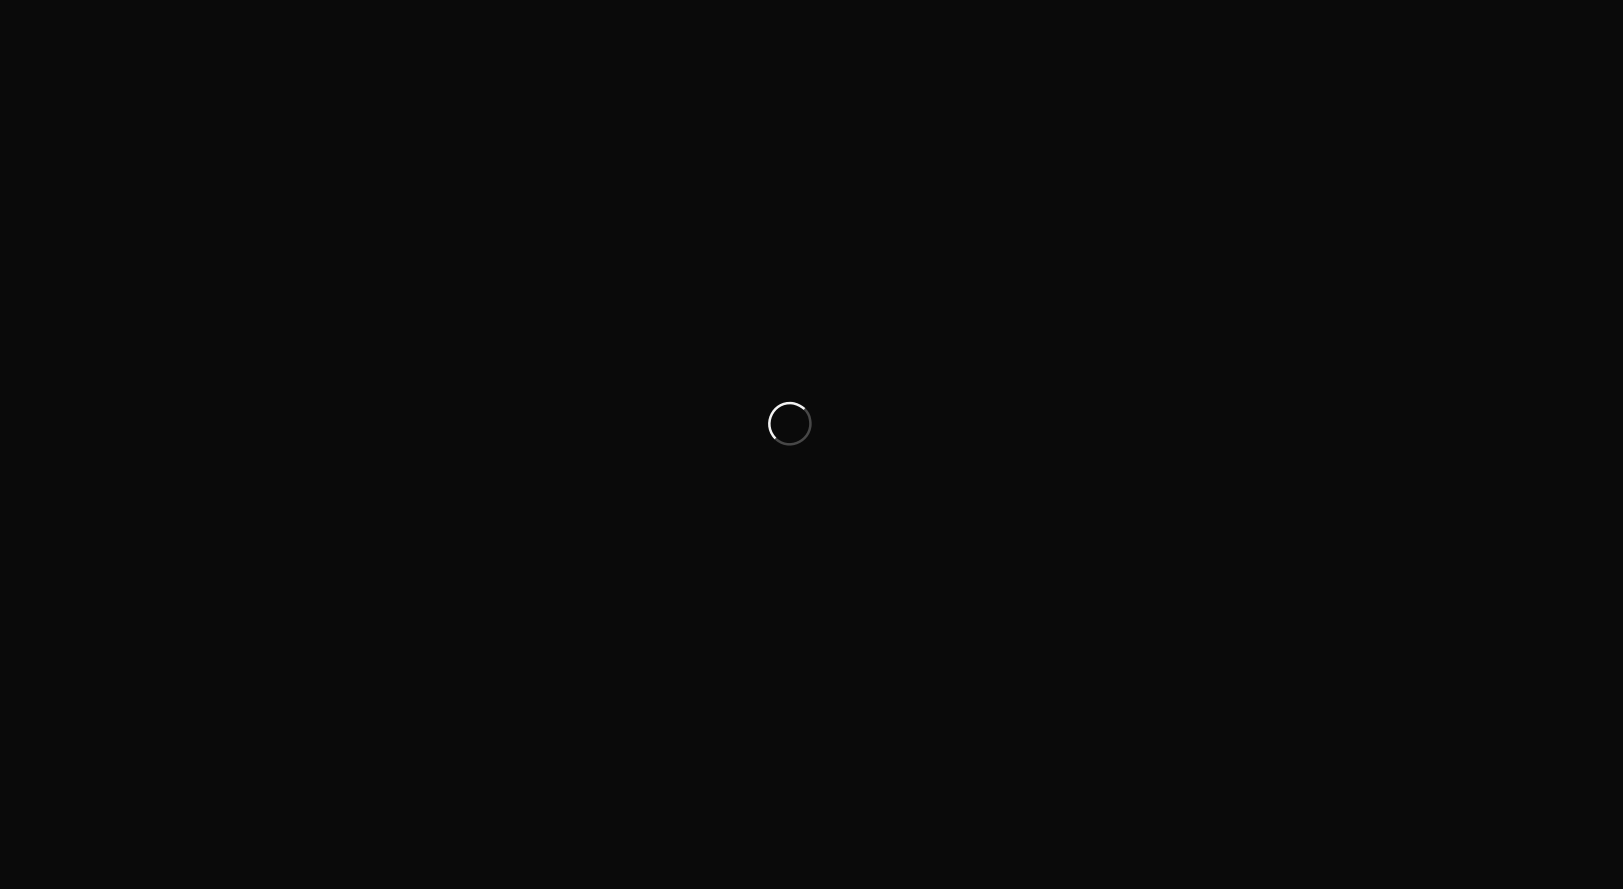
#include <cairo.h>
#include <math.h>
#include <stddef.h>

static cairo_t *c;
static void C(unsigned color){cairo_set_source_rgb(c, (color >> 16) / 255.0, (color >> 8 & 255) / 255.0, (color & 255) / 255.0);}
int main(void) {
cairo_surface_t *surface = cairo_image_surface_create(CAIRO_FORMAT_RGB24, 1623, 889);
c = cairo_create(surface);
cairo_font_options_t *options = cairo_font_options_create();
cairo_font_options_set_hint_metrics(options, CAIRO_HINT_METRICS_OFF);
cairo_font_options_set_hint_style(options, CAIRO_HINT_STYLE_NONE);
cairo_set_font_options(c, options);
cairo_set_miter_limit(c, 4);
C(0x0a0a0a);
cairo_paint(c);
cairo_new_path(c);
cairo_move_to(c,804.5,409);
cairo_curve_to(c,807.5,412,809.5,415.5,810,419.5);
cairo_curve_to(c,814,439.5,789.5,452.5,775.5,438.5);
C(0x474747);
cairo_set_line_width(c,2.5);
cairo_stroke(c);
cairo_new_path(c);
cairo_move_to(c,775.5,438.5);
cairo_curve_to(c,761,424,774,399.5,794,403.5);
cairo_curve_to(c,798,404.5,801.5,406.5,804.5,409);
cairo_set_source_rgba(c,1,1,1,0.95);
cairo_stroke(c);
cairo_surface_write_to_png(surface, "o.png");
cairo_font_options_destroy(options);
cairo_destroy(c);
cairo_surface_destroy(surface);
return 0;
}
